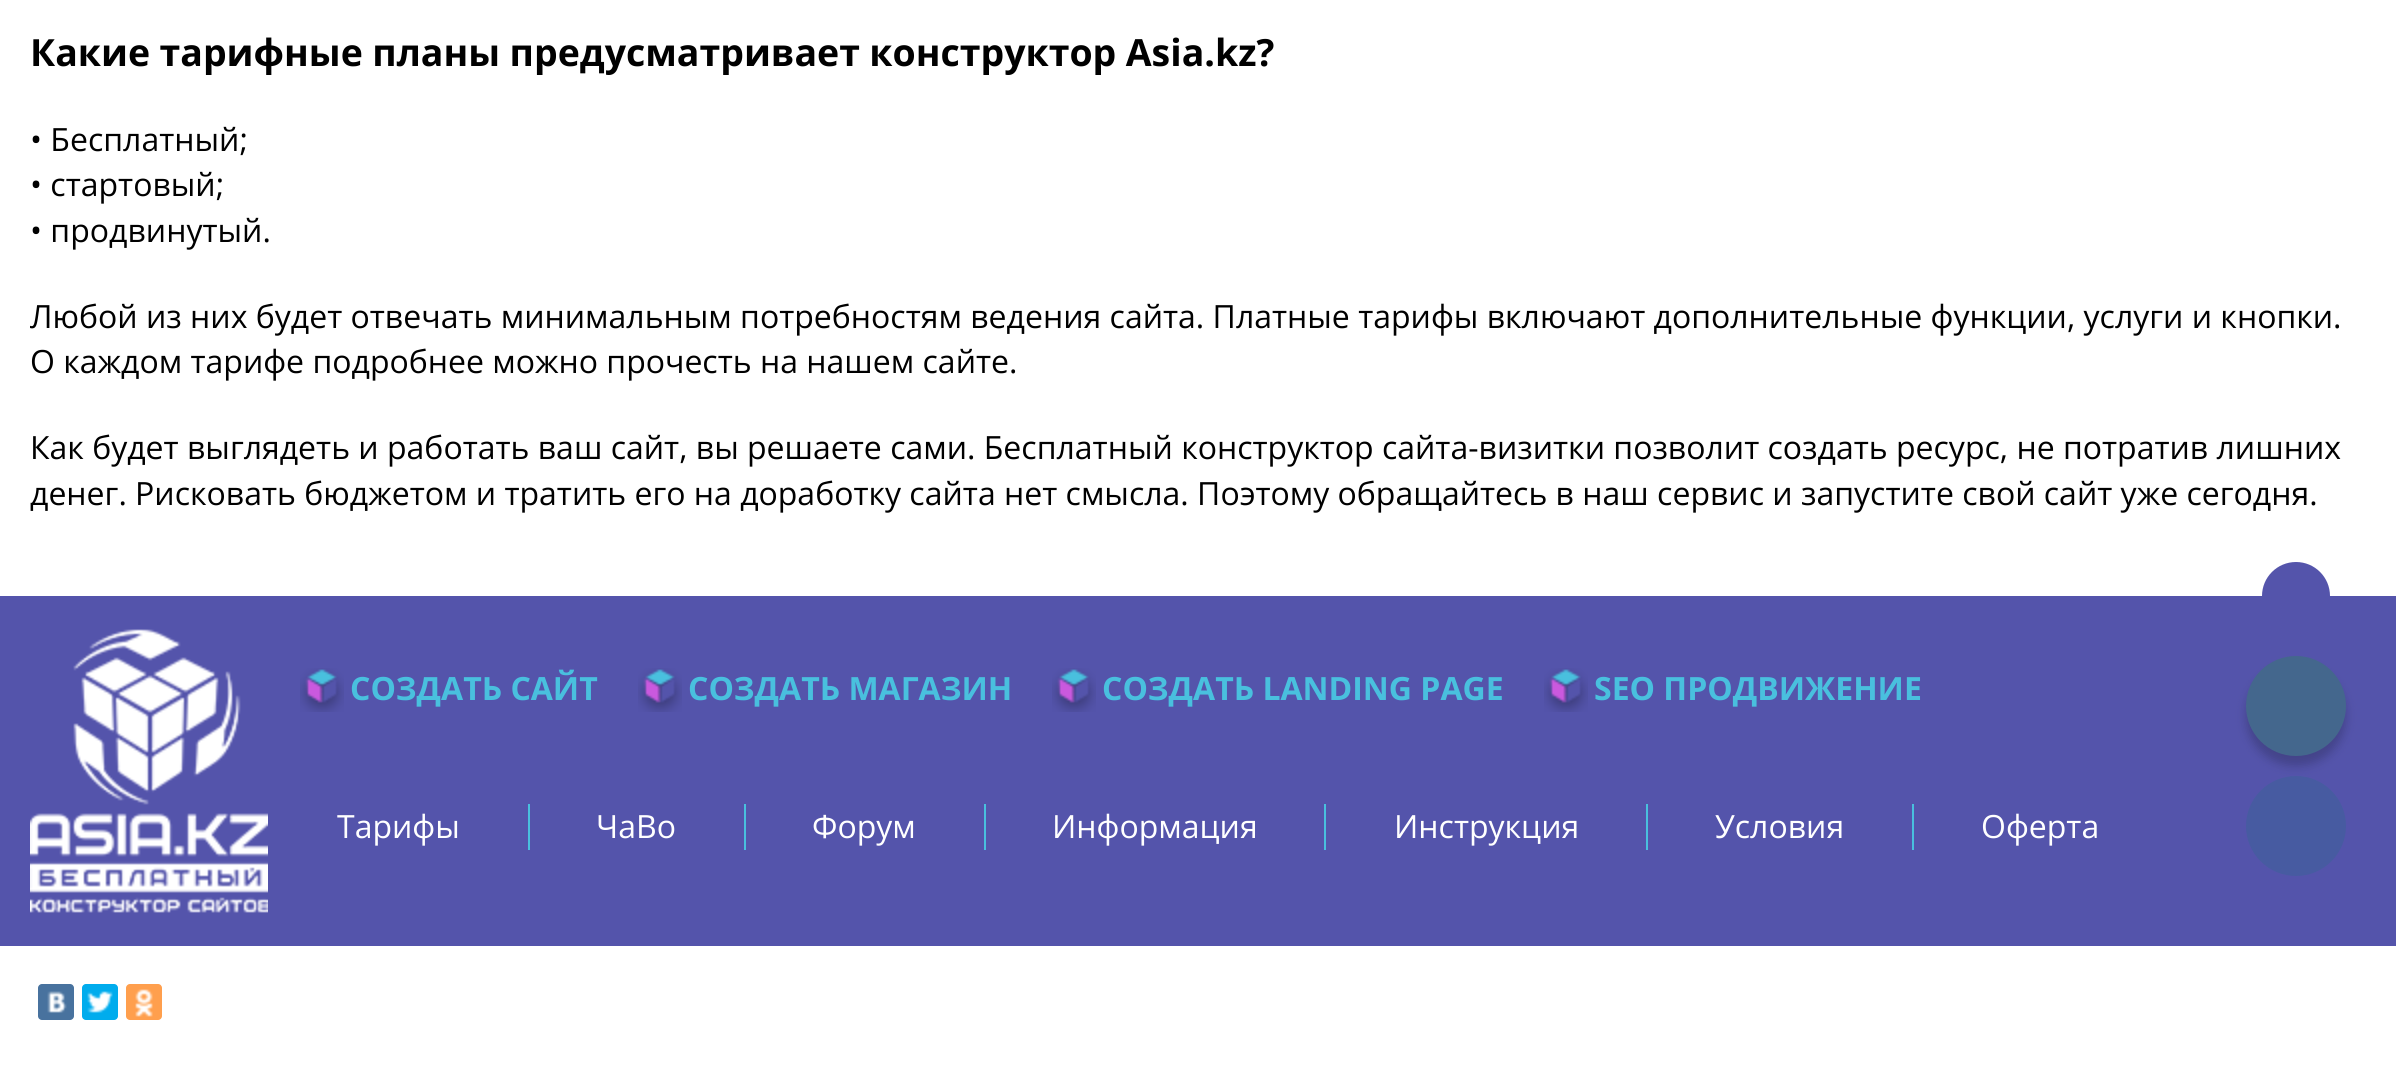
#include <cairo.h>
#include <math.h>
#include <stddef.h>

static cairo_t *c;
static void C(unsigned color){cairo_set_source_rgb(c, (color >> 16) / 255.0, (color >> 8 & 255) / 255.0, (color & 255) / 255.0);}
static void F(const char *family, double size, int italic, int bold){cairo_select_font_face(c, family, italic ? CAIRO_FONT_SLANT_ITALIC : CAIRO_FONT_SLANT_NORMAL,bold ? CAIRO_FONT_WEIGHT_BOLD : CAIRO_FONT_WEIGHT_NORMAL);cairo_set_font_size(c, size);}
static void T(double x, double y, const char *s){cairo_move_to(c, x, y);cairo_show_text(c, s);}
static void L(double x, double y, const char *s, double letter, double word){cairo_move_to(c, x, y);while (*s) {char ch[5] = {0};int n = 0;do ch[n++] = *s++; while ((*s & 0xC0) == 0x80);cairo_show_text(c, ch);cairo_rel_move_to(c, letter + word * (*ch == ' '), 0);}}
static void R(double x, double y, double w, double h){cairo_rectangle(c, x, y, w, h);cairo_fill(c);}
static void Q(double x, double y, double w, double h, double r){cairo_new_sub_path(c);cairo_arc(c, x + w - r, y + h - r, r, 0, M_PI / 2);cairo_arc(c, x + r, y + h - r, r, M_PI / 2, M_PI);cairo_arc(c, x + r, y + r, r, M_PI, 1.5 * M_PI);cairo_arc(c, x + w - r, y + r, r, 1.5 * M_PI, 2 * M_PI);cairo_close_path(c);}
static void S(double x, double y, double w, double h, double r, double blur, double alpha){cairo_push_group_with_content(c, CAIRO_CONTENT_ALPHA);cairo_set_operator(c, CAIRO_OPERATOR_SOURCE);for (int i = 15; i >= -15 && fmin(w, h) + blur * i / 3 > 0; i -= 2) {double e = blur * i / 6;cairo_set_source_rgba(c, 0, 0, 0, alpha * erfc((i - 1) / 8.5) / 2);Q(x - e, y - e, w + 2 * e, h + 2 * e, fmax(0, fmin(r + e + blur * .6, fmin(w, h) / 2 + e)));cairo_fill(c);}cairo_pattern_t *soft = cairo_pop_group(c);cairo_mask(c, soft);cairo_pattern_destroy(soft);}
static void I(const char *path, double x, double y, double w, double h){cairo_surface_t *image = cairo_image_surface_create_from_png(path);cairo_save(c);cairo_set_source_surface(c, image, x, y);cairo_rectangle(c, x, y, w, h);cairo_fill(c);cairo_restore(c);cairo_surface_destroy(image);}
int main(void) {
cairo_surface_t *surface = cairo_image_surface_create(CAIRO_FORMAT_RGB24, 2396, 1080);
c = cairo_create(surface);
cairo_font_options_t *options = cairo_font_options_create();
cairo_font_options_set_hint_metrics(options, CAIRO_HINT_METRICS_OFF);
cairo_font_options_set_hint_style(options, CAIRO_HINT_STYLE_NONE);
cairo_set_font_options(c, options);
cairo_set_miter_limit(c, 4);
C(0xffffff);
cairo_paint(c);
F("Open Sans",37.45,0,1);
C(0x000000);
L(30,66,"Какие тарифные планы предусматривает конструктор Asia.kz?",0,-.25);
F("Open Sans",32,0,0);
T(30,151,"• Бесплатный;");
T(30,196,"• стартовый;");
T(30,242,"• продвинутый.");
T(30,328,"Любой из них будет отвечать минимальным потребностям ведения сайта. Платные тарифы включают дополнительные функции, услуги и кнопки.");
T(30,373,"О каждом тарифе подробнее можно прочесть на нашем сайте.");
T(30,459,"Как будет выглядеть и работать ваш сайт, вы решаете сами. Бесплатный конструктор сайта-визитки позволит создать ресурс, не потратив лишних");
T(30,505,"денег. Рисковать бюджетом и тратить его на доработку сайта нет смысла. Поэтому обращайтесь в наш сервис и запустите свой сайт уже сегодня.");
C(0x5454ab);
R(0,596,2396,350);
I("1.png",30,629,238,284);
I("2.png",300,668,44,44);
F("Open Sans",32,0,1);
C(0x49c0de);
T(350,700,"СОЗДАТЬ САЙТ");
I("2.png",638,668,44,44);
T(688,700,"СОЗДАТЬ МАГАЗИН");
I("2.png",1052,668,44,44);
T(1102,700,"СОЗДАТЬ LANDING PAGE");
I("2.png",1544,668,44,44);
T(1594,700,"SEO ПРОДВИЖЕНИЕ");
F("Open Sans",32,0,0);
C(0xffffff);
T(337,838,"Тарифы");
C(0x49c0de);
R(528,804,2,46);
C(0xffffff);
T(596,838,"ЧаВо");
C(0x49c0de);
R(744,804,2,46);
C(0xffffff);
T(812,838,"Форум");
C(0x49c0de);
R(984,804,2,46);
C(0xffffff);
T(1052,838,"Информация");
C(0x49c0de);
R(1324,804,2,46);
C(0xffffff);
T(1394,838,"Инструкция");
C(0x49c0de);
R(1646,804,2,46);
C(0xffffff);
T(1715,838,"Условия");
C(0x49c0de);
R(1912,804,2,46);
C(0xffffff);
T(1981,838,"Оферта");
C(0x5454ab);
cairo_new_path(c);
cairo_arc(c,2296,596,34,0,2 * M_PI);
cairo_fill(c);
C(0x000000);
S(2246,666,100,100,50,5,.2);
C(0x44678d);
cairo_arc(c,2296,706,50,0,2 * M_PI);
cairo_fill(c);
C(0x475ba1);
cairo_arc(c,2296,826,50,0,2 * M_PI);
cairo_fill(c);
C(0x48729e);
Q(38,984,36,36,4);
cairo_fill(c);
I("3.png",47,991,20,22);
C(0x00aced);
Q(82,984,36,36,4);
cairo_fill(c);
I("4.png",87,991,26,22);
C(0xff9f4d);
Q(126,984,36,36,4);
cairo_fill(c);
I("5.png",135,989,18,28);
cairo_surface_write_to_png(surface, "o.png");
cairo_font_options_destroy(options);
cairo_destroy(c);
cairo_surface_destroy(surface);
return 0;
}
